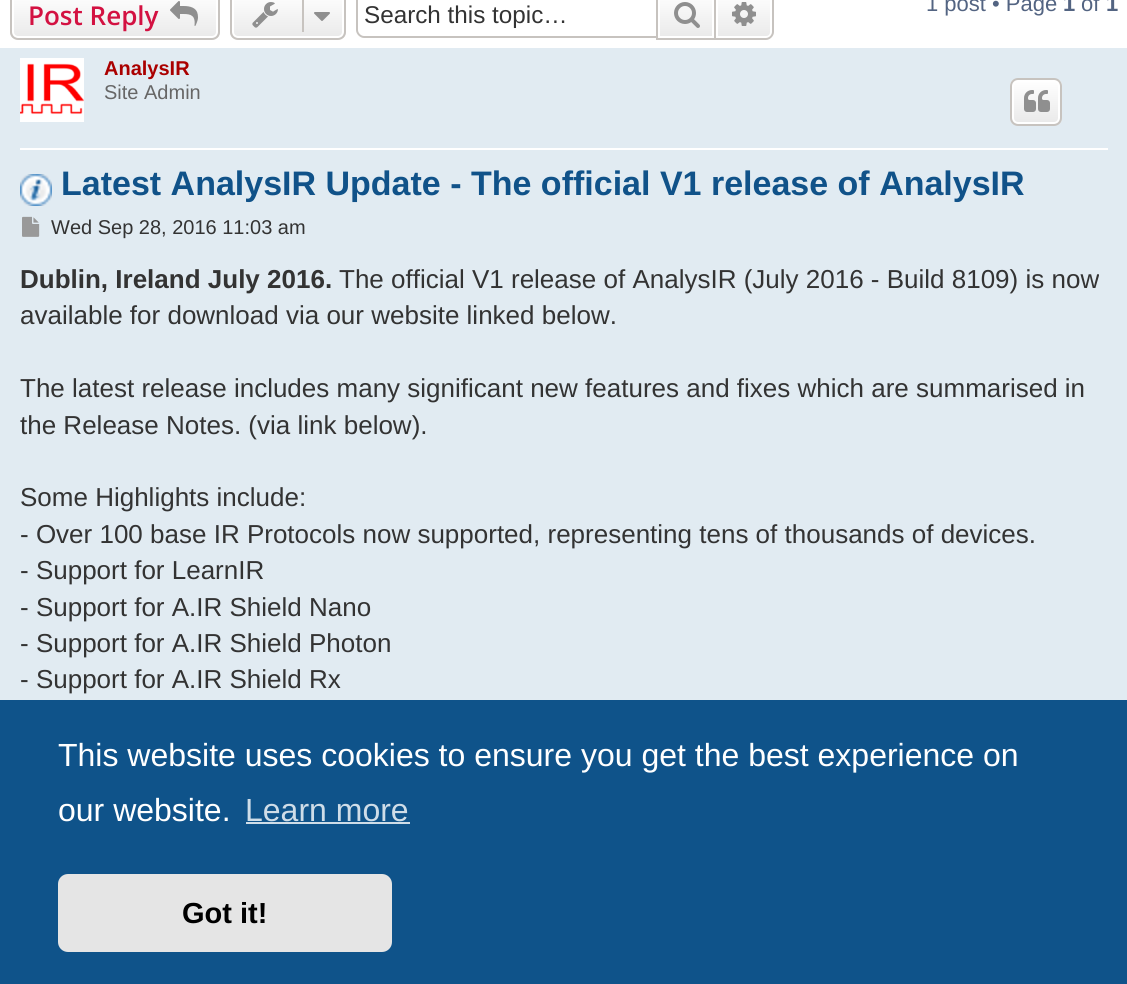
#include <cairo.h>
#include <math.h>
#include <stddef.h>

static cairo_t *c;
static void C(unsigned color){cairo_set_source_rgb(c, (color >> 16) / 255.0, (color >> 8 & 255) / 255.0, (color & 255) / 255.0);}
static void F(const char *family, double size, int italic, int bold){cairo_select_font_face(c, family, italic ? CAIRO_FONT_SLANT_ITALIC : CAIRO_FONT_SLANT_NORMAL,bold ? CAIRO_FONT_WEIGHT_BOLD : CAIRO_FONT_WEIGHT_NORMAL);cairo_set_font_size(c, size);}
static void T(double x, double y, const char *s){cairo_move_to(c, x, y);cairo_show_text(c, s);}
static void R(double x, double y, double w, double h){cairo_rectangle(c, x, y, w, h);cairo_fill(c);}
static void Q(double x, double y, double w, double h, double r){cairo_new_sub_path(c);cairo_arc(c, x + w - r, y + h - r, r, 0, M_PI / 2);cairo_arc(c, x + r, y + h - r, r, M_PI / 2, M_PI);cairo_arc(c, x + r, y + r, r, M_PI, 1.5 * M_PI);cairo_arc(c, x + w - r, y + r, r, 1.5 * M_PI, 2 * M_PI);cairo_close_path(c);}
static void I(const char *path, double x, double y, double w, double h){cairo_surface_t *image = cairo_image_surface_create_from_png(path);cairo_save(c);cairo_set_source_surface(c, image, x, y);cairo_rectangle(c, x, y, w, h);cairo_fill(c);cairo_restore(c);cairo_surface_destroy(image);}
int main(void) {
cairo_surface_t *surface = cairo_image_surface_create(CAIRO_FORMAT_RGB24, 1127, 984);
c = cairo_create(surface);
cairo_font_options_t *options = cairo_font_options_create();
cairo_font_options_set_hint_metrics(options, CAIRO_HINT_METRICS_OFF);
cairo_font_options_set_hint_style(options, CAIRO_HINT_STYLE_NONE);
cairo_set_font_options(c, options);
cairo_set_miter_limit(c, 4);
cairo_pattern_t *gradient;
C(0xffffff);
cairo_paint(c);
cairo_save(c);
Q(10,-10,210,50,8);
cairo_clip(c);
gradient = cairo_pattern_create_linear(115,-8,115,38);
cairo_pattern_add_color_stop_rgba(gradient,0,1,1,1,1);
cairo_pattern_add_color_stop_rgba(gradient,1,0.914,0.914,0.914,1);
cairo_set_source(c,gradient);
cairo_pattern_destroy(gradient);
R(10,0,210,38);
cairo_restore(c);
Q(13,-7,204,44,5);
C(0xffffff);
cairo_stroke(c);
Q(11,-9,208,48,7);
C(0xc7c3bf);
cairo_stroke(c);
F("Open Sans SemiBold",26,0,0);
C(0xd31141);
T(28,25,"Post Reply");
I("1.png",170,1,28,25);
cairo_save(c);
Q(230,-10,116,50,8);
cairo_clip(c);
gradient = cairo_pattern_create_linear(288,-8,288,38);
cairo_pattern_add_color_stop_rgba(gradient,0,1,1,1,1);
cairo_pattern_add_color_stop_rgba(gradient,1,0.914,0.914,0.914,1);
cairo_set_source(c,gradient);
cairo_pattern_destroy(gradient);
R(230,0,116,38);
cairo_restore(c);
Q(233,-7,110,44,5);
C(0xffffff);
cairo_stroke(c);
Q(231,-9,114,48,7);
C(0xc7c3bf);
cairo_stroke(c);
I("2.png",252,2,26,26);
R(302,0,2,32);
I("3.png",314,12,16,9);
cairo_set_fill_rule(c,CAIRO_FILL_RULE_EVEN_ODD);
cairo_new_path(c);
cairo_move_to(c,364,-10);
cairo_line_to(c,656,-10);
cairo_line_to(c,656,38);
cairo_line_to(c,364,38);
cairo_curve_to(c,360,38,356,34,356,30);
cairo_line_to(c,356,-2);
cairo_curve_to(c,356,-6,360,-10,364,-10);
cairo_close_path(c);
cairo_move_to(c,364,-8);
cairo_line_to(c,656,-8);
cairo_line_to(c,656,36);
cairo_line_to(c,364,36);
cairo_curve_to(c,361,36,358,33,358,30);
cairo_line_to(c,358,-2);
cairo_curve_to(c,358,-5,361,-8,364,-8);
cairo_close_path(c);
cairo_fill(c);
F("Liberation Sans",24.25,0,0);
C(0x333333);
T(364,23,"Search this topic…");
gradient = cairo_pattern_create_linear(686,-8,686,38);
cairo_pattern_add_color_stop_rgba(gradient,0,1,1,1,1);
cairo_pattern_add_color_stop_rgba(gradient,1,0.914,0.914,0.914,1);
cairo_set_source(c,gradient);
cairo_pattern_destroy(gradient);
R(660,0,52,36);
cairo_rectangle(c,657,-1,58,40);
C(0xc7c3bf);
cairo_stroke(c);
I("4.png",674,2,26,26);
gradient = cairo_pattern_create_linear(744,-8,744,38);
cairo_pattern_add_color_stop_rgba(gradient,0,1,1,1,1);
cairo_pattern_add_color_stop_rgba(gradient,1,0.914,0.914,0.914,1);
cairo_set_source(c,gradient);
cairo_pattern_destroy(gradient);
cairo_new_path(c);
cairo_move_to(c,716,-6);
cairo_line_to(c,766,-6);
cairo_curve_to(c,769.5,-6,772,-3.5,772,0);
cairo_line_to(c,772,32);
cairo_curve_to(c,772,35.5,769.5,38,766,38);
cairo_line_to(c,716,38);
cairo_close_path(c);
cairo_fill(c);
cairo_new_path(c);
cairo_move_to(c,717,-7);
cairo_line_to(c,766,-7);
cairo_curve_to(c,769,-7,771,-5,771,-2);
cairo_line_to(c,771,32);
cairo_curve_to(c,771,35,769,37,766,37);
cairo_line_to(c,717,37);
cairo_close_path(c);
C(0xffffff);
cairo_stroke(c);
C(0xc7c3bf);
cairo_new_path(c);
cairo_move_to(c,716,-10);
cairo_line_to(c,766,-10);
cairo_curve_to(c,770,-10,774,-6,774,-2);
cairo_line_to(c,774,32);
cairo_curve_to(c,774,36,770,40,766,40);
cairo_line_to(c,716,40);
cairo_close_path(c);
cairo_move_to(c,716,-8);
cairo_line_to(c,766,-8);
cairo_curve_to(c,769,-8,772,-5,772,-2);
cairo_line_to(c,772,32);
cairo_curve_to(c,772,35,769,38,766,38);
cairo_line_to(c,716,38);
cairo_close_path(c);
cairo_fill(c);
I("5.png",732,2,24,24);
F("Liberation Sans",22,0,0);
C(0x536482);
T(926,11,"1 post • Page");
F("Liberation Sans",22,0,1);
T(1063,11,"1");
F("Liberation Sans",22,0,0);
T(1081,11,"of");
F("Liberation Sans",22,0,1);
T(1106,11,"1");
C(0xe1ebf2);
R(0,48,1127,652);
C(0xffffff);
R(20,148,1088,2);
I("6.png",20,58,64,64);
F("Liberation Sans",20,0,1);
C(0xaa0000);
T(104,75,"AnalysIR");
F("Liberation Sans",20,0,0);
C(0x666666);
T(104,99,"Site Admin");
cairo_save(c);
cairo_set_fill_rule(c,CAIRO_FILL_RULE_WINDING);
Q(1010,78,52,48,8);
cairo_clip(c);
gradient = cairo_pattern_create_linear(1036,80,1036,124);
cairo_pattern_add_color_stop_rgba(gradient,0,1,1,1,1);
cairo_pattern_add_color_stop_rgba(gradient,1,0.914,0.914,0.914,1);
cairo_set_source(c,gradient);
cairo_pattern_destroy(gradient);
R(1010,80,52,44);
cairo_restore(c);
Q(1013,81,46,42,5);
C(0xffffff);
cairo_stroke(c);
Q(1011,79,50,46,7);
C(0xc7c3bf);
cairo_stroke(c);
I("7.png",1024,90,26,22);
I("8.png",20,174,32,32);
F("Liberation Sans",34,0,1);
C(0x105289);
T(61,195,"Latest AnalysIR Update - The official V1 release of AnalysIR");
I("9.png",22,216,18,21);
F("Liberation Sans",20,0,0);
C(0x333333);
T(51,234,"Wed Sep 28, 2016 11:03 am");
F("Liberation Sans",26,0,1);
T(20,288,"Dublin, Ireland July 2016.");
F("Liberation Sans",26,0,0);
T(339,288,"The official V1 release of AnalysIR (July 2016 - Build 8109) is now");
T(20,324,"available for download via our website linked below.");
T(20,397,"The latest release includes many significant new features and fixes which are summarised in");
T(20,434,"the Release Notes. (via link below).");
T(20,506,"Some Highlights include:");
T(20,543,"- Over 100 base IR Protocols now supported, representing tens of thousands of devices.");
T(20,579,"- Support for LearnIR");
T(20,616,"- Support for A.IR Shield Nano");
T(20,652,"- Support for A.IR Shield Photon");
T(20,688,"- Support for A.IR Shield Rx");
C(0x0f538a);
R(0,700,1127,284);
F("Liberation Sans",32,0,0);
C(0xffffff);
T(58,766,"This website uses cookies to ensure you get the best experience on");
T(58,821,"our website.");
C(0xcfdde8);
T(245,821,"Learn more");
R(246,822,164,2);
C(0xe5e5e5);
Q(58,874,334,78,10);
cairo_fill(c);
F("Liberation Sans",29,0,1);
C(0x000000);
T(182,923,"Got it!");
cairo_surface_write_to_png(surface, "o.png");
cairo_font_options_destroy(options);
cairo_destroy(c);
cairo_surface_destroy(surface);
return 0;
}
